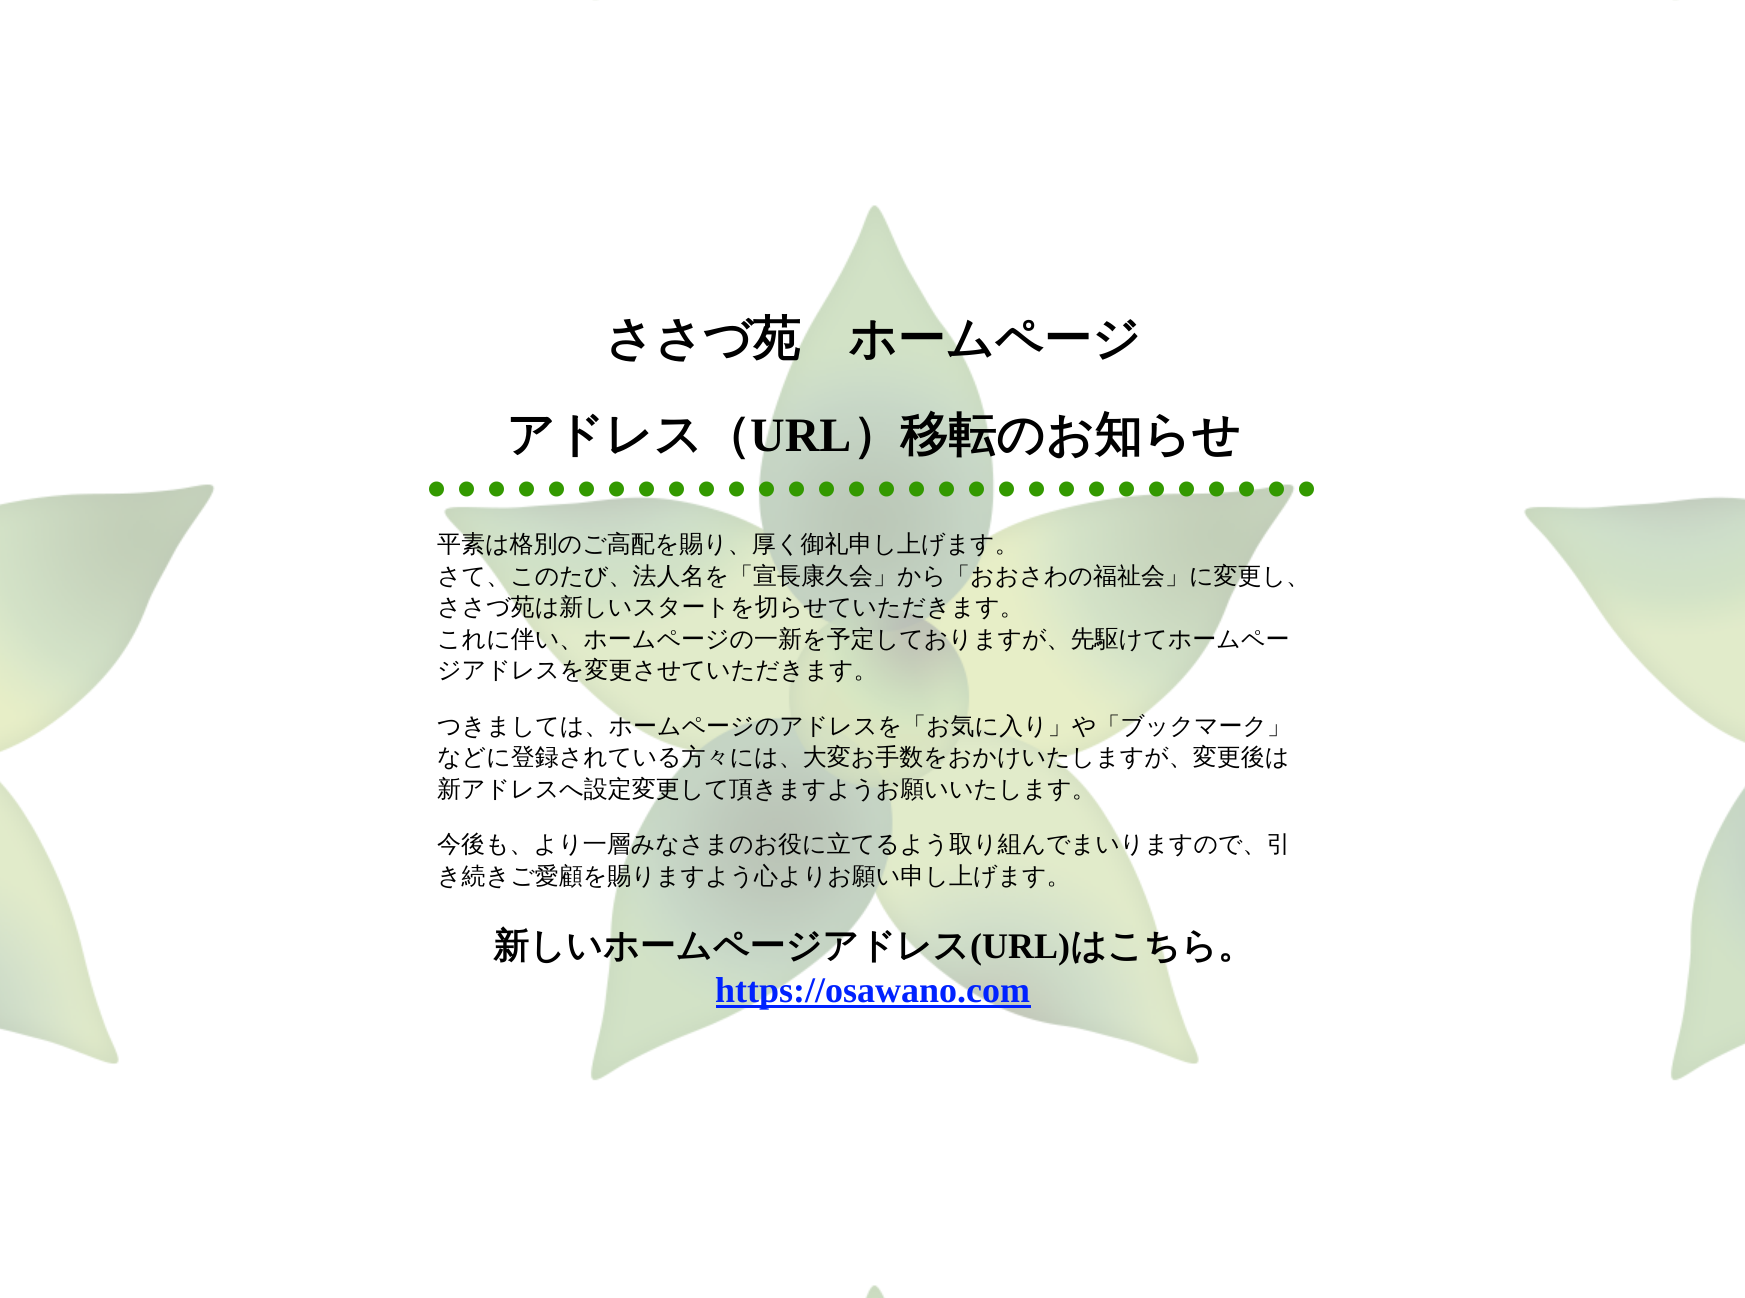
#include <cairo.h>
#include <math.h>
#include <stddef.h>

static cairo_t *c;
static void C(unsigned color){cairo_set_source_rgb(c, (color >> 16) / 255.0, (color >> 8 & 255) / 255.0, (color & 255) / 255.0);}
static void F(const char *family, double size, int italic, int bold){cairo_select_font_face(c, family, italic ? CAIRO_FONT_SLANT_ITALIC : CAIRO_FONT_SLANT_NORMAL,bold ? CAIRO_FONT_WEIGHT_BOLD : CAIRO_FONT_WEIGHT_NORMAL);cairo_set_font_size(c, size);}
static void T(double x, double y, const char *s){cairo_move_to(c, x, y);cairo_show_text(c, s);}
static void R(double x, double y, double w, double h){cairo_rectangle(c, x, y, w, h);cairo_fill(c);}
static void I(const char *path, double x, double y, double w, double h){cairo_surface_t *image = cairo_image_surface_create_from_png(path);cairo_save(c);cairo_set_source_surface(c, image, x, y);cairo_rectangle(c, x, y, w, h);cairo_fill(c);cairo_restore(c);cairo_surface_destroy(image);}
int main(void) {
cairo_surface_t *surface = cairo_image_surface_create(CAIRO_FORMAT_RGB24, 1745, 1298);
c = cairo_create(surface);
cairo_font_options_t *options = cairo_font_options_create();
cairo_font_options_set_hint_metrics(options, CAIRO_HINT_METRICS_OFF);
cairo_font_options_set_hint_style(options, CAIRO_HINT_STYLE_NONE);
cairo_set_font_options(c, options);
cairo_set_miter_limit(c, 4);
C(0xffffff);
cairo_paint(c);
I("1.png",0,0,1745,1298);
cairo_new_path(c);
cairo_move_to(c,436.5,489);
cairo_line_to(c,1309.5,489);
C(0x339900);
cairo_set_line_width(c,15);
cairo_set_line_cap(c,CAIRO_LINE_CAP_ROUND);
cairo_set_dash(c,(double[]){0,30},2,0);
cairo_stroke(c);
F("WenQuanYi Zen Hei",48,0,1);
C(0x000000);
T(605,355,"ささづ苑");
T(848,355,"ホームページ");
T(506,451,"アドレス（");
F("Liberation Serif",48,0,1);
T(750,451,"URL");
F("WenQuanYi Zen Hei",48,0,1);
T(852,451,"）移転のお知らせ");
F("WenQuanYi Zen Hei Medium",24,0,0);
T(437,552,"平素は格別のご高配を賜り、厚く御礼申し上げます。");
T(437,584,"さて、このたび、法人名を「宣長康久会」から「おおさわの福祉会」に変更し、");
T(437,615,"ささづ苑は新しいスタートを切らせていただきます。");
T(437,647,"これに伴い、ホームページの一新を予定しておりますが、先駆けてホームペー");
T(437,678,"ジアドレスを変更させていただきます。");
T(437,734,"つきましては、ホームページのアドレスを「お気に入り」や「ブックマーク」");
T(437,765,"などに登録されている方々には、大変お手数をおかけいたしますが、変更後は");
T(437,797,"新アドレスへ設定変更して頂きますようお願いいたします。");
T(437,852,"今後も、より一層みなさまのお役に立てるよう取り組んでまいりますので、引");
T(437,884,"き続きご愛顧を賜りますよう心よりお願い申し上げます。");
F("WenQuanYi Zen Hei",36,0,1);
T(493,958,"新しいホームページアドレス");
F("Liberation Serif",36,0,1);
T(970,958,"(URL)");
F("WenQuanYi Zen Hei",36,0,1);
T(1070,958,"はこちら。");
C(0x0022ff);
R(716,1005,315,3);
F("Liberation Serif",36,0,1);
T(715,1002,"https://osawano.com");
cairo_surface_write_to_png(surface, "o.png");
cairo_font_options_destroy(options);
cairo_destroy(c);
cairo_surface_destroy(surface);
return 0;
}
